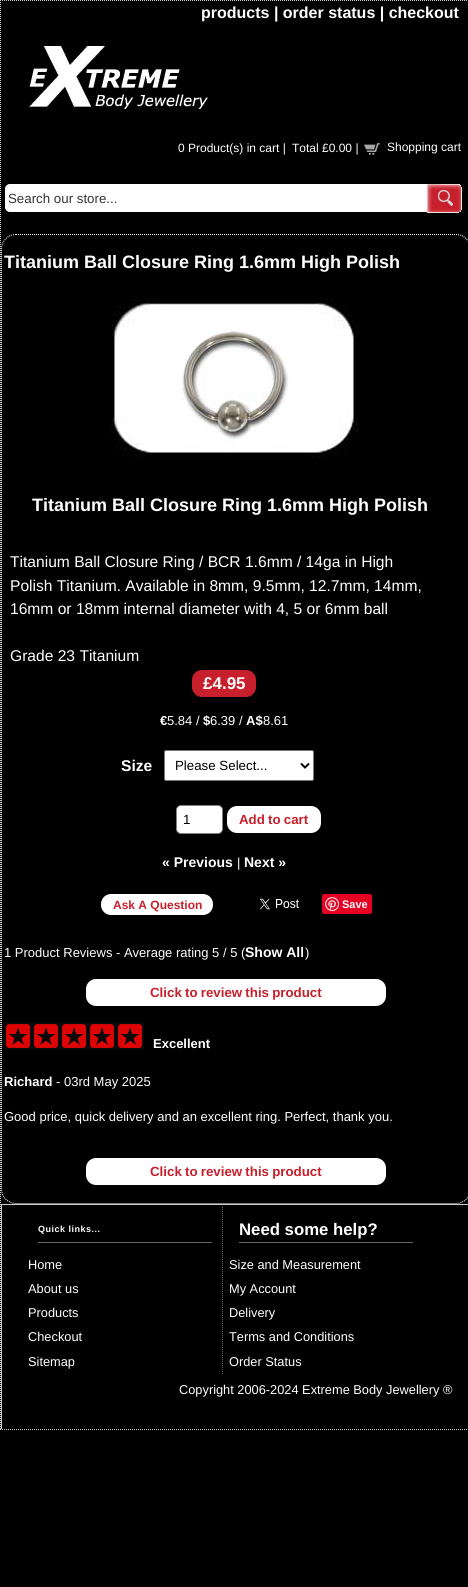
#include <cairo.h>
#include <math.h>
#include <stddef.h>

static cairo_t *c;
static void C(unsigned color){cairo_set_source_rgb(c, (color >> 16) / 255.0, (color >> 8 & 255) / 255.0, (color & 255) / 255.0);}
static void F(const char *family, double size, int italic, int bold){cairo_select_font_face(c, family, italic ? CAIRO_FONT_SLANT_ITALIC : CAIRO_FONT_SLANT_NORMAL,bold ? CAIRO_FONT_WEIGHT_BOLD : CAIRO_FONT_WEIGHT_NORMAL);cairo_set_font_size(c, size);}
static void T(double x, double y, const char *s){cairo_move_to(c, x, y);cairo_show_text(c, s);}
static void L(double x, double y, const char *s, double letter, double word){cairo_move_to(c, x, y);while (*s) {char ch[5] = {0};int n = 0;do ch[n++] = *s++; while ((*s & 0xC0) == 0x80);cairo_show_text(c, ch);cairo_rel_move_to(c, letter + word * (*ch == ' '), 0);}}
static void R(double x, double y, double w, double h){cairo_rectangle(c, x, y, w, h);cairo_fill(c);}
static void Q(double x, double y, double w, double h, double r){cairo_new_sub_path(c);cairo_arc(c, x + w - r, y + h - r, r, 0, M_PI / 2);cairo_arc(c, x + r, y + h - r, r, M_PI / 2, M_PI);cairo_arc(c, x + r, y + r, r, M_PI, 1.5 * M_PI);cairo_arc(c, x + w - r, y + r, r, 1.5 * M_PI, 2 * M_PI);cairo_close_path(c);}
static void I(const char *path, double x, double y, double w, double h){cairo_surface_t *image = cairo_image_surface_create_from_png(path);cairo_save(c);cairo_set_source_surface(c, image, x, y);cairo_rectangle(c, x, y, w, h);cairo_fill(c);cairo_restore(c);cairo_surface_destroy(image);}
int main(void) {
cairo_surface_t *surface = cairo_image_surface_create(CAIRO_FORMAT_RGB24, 468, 1587);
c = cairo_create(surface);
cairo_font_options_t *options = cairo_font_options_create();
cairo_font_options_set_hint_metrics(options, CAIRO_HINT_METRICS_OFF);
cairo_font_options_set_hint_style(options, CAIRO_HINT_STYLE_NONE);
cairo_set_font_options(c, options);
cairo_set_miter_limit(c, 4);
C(0x000000);
cairo_paint(c);
cairo_new_path(c);
cairo_move_to(c,0,.5);
cairo_line_to(c,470,.5);
C(0xcccccc);
cairo_set_line_width(c,1);
cairo_set_dash(c,(double[]){1,1},2,0);
cairo_stroke(c);
cairo_new_path(c);
cairo_move_to(c,0,1429.5);
cairo_line_to(c,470,1429.5);
cairo_stroke(c);
cairo_new_path(c);
cairo_move_to(c,.5,0);
cairo_line_to(c,.5,1430);
cairo_stroke(c);
F("Liberation Sans",16,0,1);
C(0xffffff);
T(201,18,"products | order status | checkout");
I("1.png",26,41,183,72);
F("Liberation Sans",12,0,0);
T(178,152,"0 Product(s) in cart |");
T(292,152,"Total £0.00 |");
I("2.png",364,143,16,12);
T(387,151,"Shopping cart");
cairo_new_path(c);
cairo_move_to(c,10,184.5);
cairo_line_to(c,426.5,184.5);
cairo_line_to(c,426.5,211.5);
cairo_line_to(c,10,211.5);
cairo_curve_to(c,7.5,211.5,5.5,209.5,5.5,207);
cairo_line_to(c,5.5,189);
cairo_curve_to(c,5.5,186.5,7.5,184.5,10,184.5);
cairo_close_path(c);
cairo_fill_preserve(c);
cairo_set_dash(c,NULL,0,0);
cairo_stroke(c);
F("Liberation Sans",13.3,0,0);
C(0x333333);
T(8,203,"Search our store...");
I("3.png",427,184,35,29);
cairo_new_path(c);
cairo_move_to(c,16,234.5);
cairo_line_to(c,456,234.5);
cairo_curve_to(c,464,234.5,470.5,241,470.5,249);
cairo_line_to(c,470.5,1189);
cairo_curve_to(c,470.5,1197,464,1203.5,456,1203.5);
cairo_line_to(c,16,1203.5);
cairo_curve_to(c,8,1203.5,1.5,1197,1.5,1189);
cairo_line_to(c,1.5,249);
cairo_curve_to(c,1.5,241,8,234.5,16,234.5);
cairo_close_path(c);
C(0xffffff);
cairo_set_dash(c,(double[]){1,1},2,0);
cairo_stroke(c);
F("Liberation Sans",18,0,1);
T(4,268,"Titanium Ball Closure Ring 1.6mm High Polish");
I("4.png",110,298,248,162);
T(32,511,"Titanium Ball Closure Ring 1.6mm High Polish");
F("Liberation Sans",15.6,0,0);
T(10,567,"Titanium Ball Closure Ring / BCR 1.6mm / 14ga in High");
T(10,591,"Polish Titanium. Available in 8mm, 9.5mm, 12.7mm, 14mm,");
T(10,614,"16mm or 18mm internal diameter with 4, 5 or 6mm ball");
T(10,661,"Grade 23 Titanium");
C(0xc7202c);
Q(192.5,670.5,63,26,9.5);
cairo_fill_preserve(c);
cairo_set_dash(c,NULL,0,0);
cairo_stroke(c);
F("Liberation Sans",17,0,1);
C(0xffffff);
T(203,689,"£4.95");
F("Liberation Sans",13,0,1);
T(160,725,"€");
F("Liberation Sans",13,0,0);
T(167,725,"5.84 /");
F("Liberation Sans",13,0,1);
T(203,725,"$");
F("Liberation Sans",13,0,0);
T(210,725,"6.39 /");
F("Liberation Sans",13,0,1);
T(246,725,"A$");
F("Liberation Sans",13,0,0);
T(263,725,"8.61");
F("Liberation Sans",15.6,0,1);
T(121,771,"Size");
Q(164.5,750.5,149,30,1.5);
cairo_fill_preserve(c);
C(0x767676);
cairo_stroke(c);
cairo_new_path(c);
cairo_move_to(c,301,763.5);
cairo_line_to(c,305,767.5);
cairo_line_to(c,309,763.5);
C(0x000000);
cairo_set_line_width(c,2);
cairo_stroke(c);
F("Liberation Sans",13.3,0,0);
T(175,770,"Please Select...");
C(0xffffff);
Q(176.5,805.5,46,28,4.5);
cairo_fill_preserve(c);
C(0x808080);
cairo_set_line_width(c,1);
cairo_stroke(c);
C(0x000000);
T(183,824,"1");
C(0xffffff);
Q(227,806,94,27,10);
cairo_fill(c);
F("Liberation Sans",13.3,0,1);
C(0xc7202c);
L(239,824,"Add to cart",0,-.5);
F("Liberation Sans",14,0,1);
C(0xffffff);
T(162,867,"« Previous");
F("Liberation Sans",13,0,0);
T(237,867,"|");
F("Liberation Sans",14,0,1);
T(244,867,"Next »");
Q(101,894,112,21,10);
cairo_fill(c);
F("Liberation Sans",12,0,1);
C(0xc7202c);
T(113,909,"Ask A Question");
I("5.png",259,898,40,12);
C(0xe60023);
Q(322,894,50,20,2);
cairo_fill(c);
I("6.png",325,897,14,14);
F("Liberation Sans",11,0,1);
C(0xffffff);
T(342,908,"Save");
F("Liberation Sans",13,0,0);
T(4,957,"1 Product Reviews - Average rating 5 / 5 (");
F("Liberation Sans",14,0,1);
T(245,957,"Show All");
F("Liberation Sans",13,0,0);
T(305,957,")");
Q(86,979,300,27,10);
cairo_fill(c);
F("Liberation Sans",13.3,0,1);
C(0xc7202c);
L(150,997,"Click to review this product",0,-.5);
I("7.png",4,1022,28,28);
I("7.png",32,1022,28,28);
I("7.png",60,1022,28,28);
I("7.png",88,1022,28,28);
I("7.png",116,1022,28,28);
F("Liberation Sans",13,0,1);
C(0xffffff);
T(153,1048,"Excellent");
T(4,1086,"Richard");
F("Liberation Sans",13,0,0);
T(56,1086,"- 03rd May 2025");
T(4,1121,"Good price, quick delivery and an excellent ring. Perfect, thank you.");
Q(86,1158,300,27,10);
cairo_fill(c);
F("Liberation Sans",13.3,0,1);
C(0xc7202c);
L(150,1176,"Click to review this product",0,-.5);
C(0xcccccc);
R(1,1204,467,1);
R(1,1204,1,225);
cairo_new_path(c);
cairo_move_to(c,222.5,1207);
cairo_line_to(c,222.5,1374);
C(0x666666);
cairo_set_dash(c,(double[]){1,1},2,0);
cairo_stroke(c);
R(38,1242,174,1);
F("Liberation Sans",9,0,1);
C(0xffffff);
L(38,1232,"Quick links...",.5,0);
F("Liberation Sans",12.8,0,0);
T(28,1269,"Home");
T(28,1293,"About us");
T(28,1317,"Products");
T(28,1341,"Checkout");
T(28,1366,"Sitemap");
C(0x666666);
R(239,1242,174,1);
F("Liberation Sans",16.75,0,1);
C(0xffffff);
T(239,1235,"Need some help?");
F("Liberation Sans",12.8,0,0);
T(229,1269,"Size and Measurement");
T(229,1293,"My Account");
T(229,1317,"Delivery");
T(229,1341,"Terms and Conditions");
T(229,1366,"Order Status");
T(179,1394,"Copyright 2006-2024 Extreme Body Jewellery ®");
cairo_surface_write_to_png(surface, "o.png");
cairo_font_options_destroy(options);
cairo_destroy(c);
cairo_surface_destroy(surface);
return 0;
}
